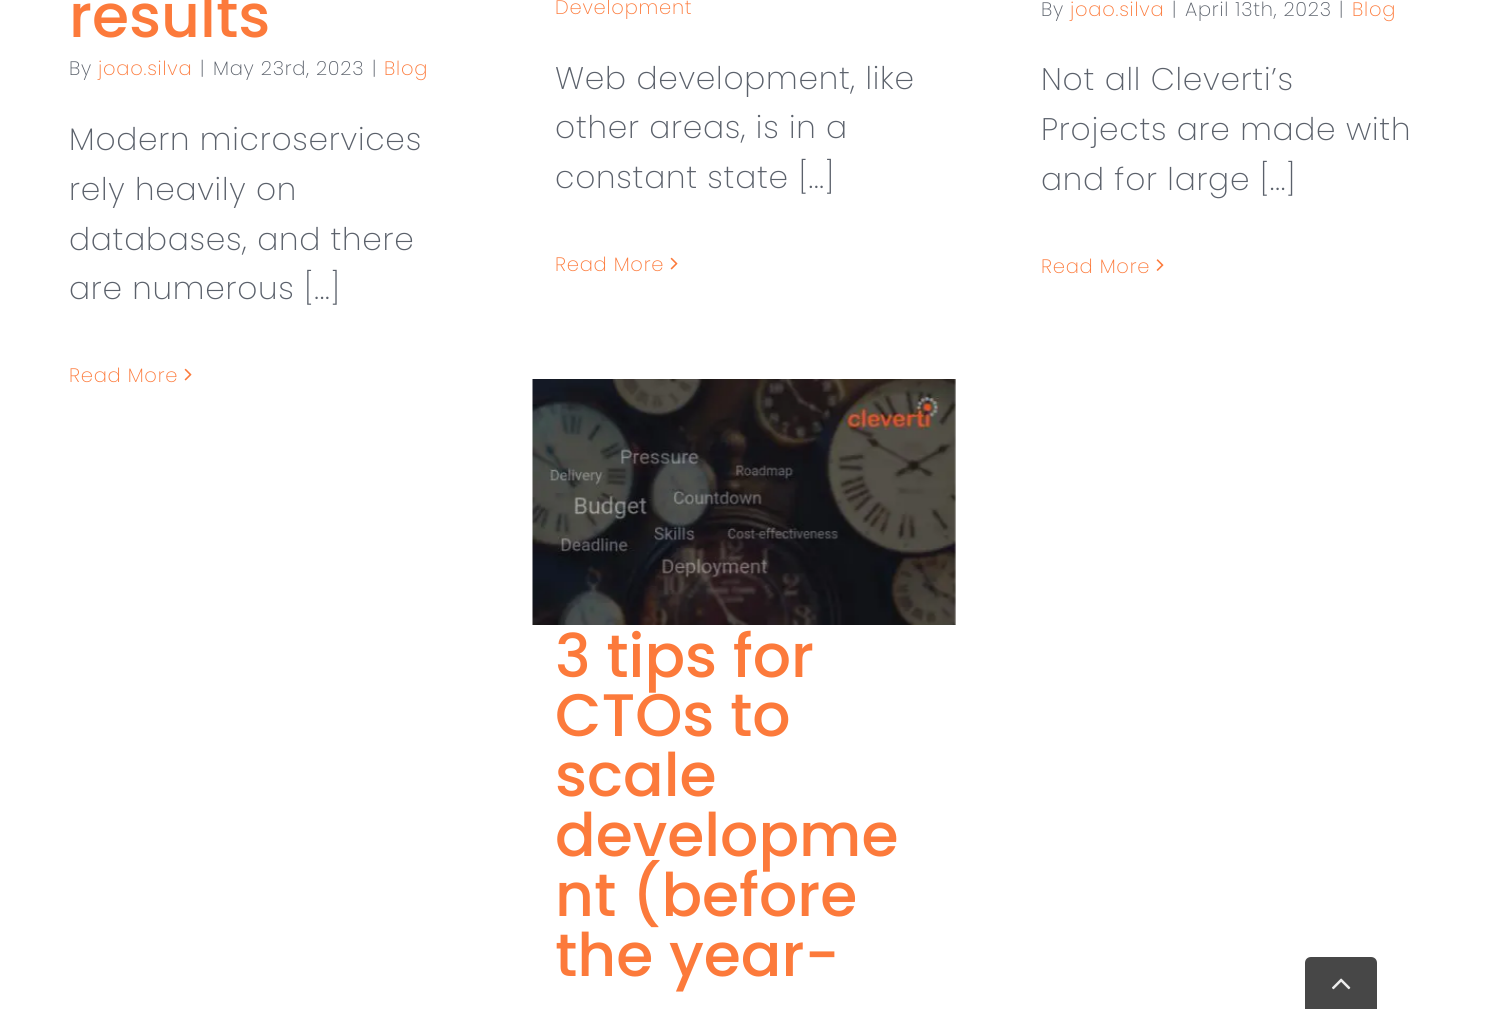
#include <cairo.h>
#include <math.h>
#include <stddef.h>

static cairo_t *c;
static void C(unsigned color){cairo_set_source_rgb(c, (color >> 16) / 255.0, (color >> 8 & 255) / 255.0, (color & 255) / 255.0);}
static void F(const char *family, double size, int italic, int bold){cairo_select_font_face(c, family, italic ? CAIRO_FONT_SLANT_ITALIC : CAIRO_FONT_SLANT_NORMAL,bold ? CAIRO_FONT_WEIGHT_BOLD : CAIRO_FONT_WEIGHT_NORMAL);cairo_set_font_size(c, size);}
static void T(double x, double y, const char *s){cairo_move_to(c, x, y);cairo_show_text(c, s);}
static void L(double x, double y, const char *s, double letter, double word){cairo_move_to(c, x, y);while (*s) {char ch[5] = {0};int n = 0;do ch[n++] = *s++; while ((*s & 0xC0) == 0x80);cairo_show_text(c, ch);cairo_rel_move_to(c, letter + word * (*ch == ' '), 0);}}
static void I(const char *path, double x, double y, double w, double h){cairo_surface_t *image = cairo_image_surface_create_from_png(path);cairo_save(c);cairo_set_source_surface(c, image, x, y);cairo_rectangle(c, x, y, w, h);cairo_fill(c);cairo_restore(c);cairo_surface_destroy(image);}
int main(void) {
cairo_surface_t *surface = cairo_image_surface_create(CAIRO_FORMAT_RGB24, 1489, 1009);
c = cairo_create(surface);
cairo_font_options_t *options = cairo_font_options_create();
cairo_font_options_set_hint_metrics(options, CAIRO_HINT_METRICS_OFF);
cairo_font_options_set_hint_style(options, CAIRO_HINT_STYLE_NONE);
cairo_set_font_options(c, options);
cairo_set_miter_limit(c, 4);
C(0xffffff);
cairo_paint(c);
F("Poppins Medium",60,0,0);
C(0xfc7a3b);
T(69,37,"results");
F("Poppins ExtraLight",19.5,0,0);
C(0x5b616b);
L(69,75,"By",.75,0);
C(0xfc7a3b);
L(98,75,"joao.silva",.75,0);
C(0x5b616b);
L(200,75,"|",.75,0);
L(213,75,"May 23rd, 2023",.75,0);
L(372,75,"|",.75,0);
C(0xfc7a3b);
L(384,75,"Blog",.75,0);
F("Poppins ExtraLight",31.25,0,0);
C(0x5b616b);
L(69,150,"Modern microservices",.75,0);
L(69,200,"rely heavily on",.75,0);
L(69,250,"databases, and there",.75,0);
L(69,299,"are numerous [...]",.75,0);
F("Poppins ExtraLight",19.5,0,0);
C(0xfc7a3b);
L(69,382,"Read More",.75,0);
I("1.png",184,368,8,13);
L(555,14,"Development",.75,0);
F("Poppins ExtraLight",31.25,0,0);
C(0x5b616b);
L(555,89,"Web development, like",.75,0);
L(555,138,"other areas, is in a",.75,0);
L(555,188,"constant state [...]",.75,0);
F("Poppins ExtraLight",19.5,0,0);
C(0xfc7a3b);
L(555,271,"Read More",.75,0);
I("1.png",670,257,8,13);
C(0x5b616b);
L(1041,16,"By",.75,0);
C(0xfc7a3b);
L(1070,16,"joao.silva",.75,0);
C(0x5b616b);
L(1172,16,"|",.75,0);
L(1185,16,"April 13th, 2023",.75,0);
L(1339,16,"|",.75,0);
C(0xfc7a3b);
L(1352,16,"Blog",.75,0);
F("Poppins ExtraLight",31.25,0,0);
C(0x5b616b);
L(1041,90,"Not all Cleverti’s",.75,0);
L(1041,140,"Projects are made with",.75,0);
L(1041,190,"and for large [...]",.75,0);
F("Poppins ExtraLight",19.5,0,0);
C(0xfc7a3b);
L(1041,273,"Read More",.75,0);
I("2.png",1156,259,8,12);
I("3.png",532,379,424,246);
F("Poppins Medium",60,0,0);
T(555,677,"3 tips for");
T(555,736,"CTOs to");
T(555,796,"scale");
T(555,856,"developme");
T(555,916,"nt (before");
T(555,976,"the year-");
C(0x474747);
cairo_new_path(c);
cairo_move_to(c,1311,957);
cairo_line_to(c,1371,957);
cairo_curve_to(c,1374.5,957,1377,959.5,1377,963);
cairo_line_to(c,1377,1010);
cairo_line_to(c,1305,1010);
cairo_line_to(c,1305,963);
cairo_curve_to(c,1305,959.5,1307.5,957,1311,957);
cairo_close_path(c);
cairo_fill(c);
I("4.png",1332,978,19,12);
cairo_surface_write_to_png(surface, "o.png");
cairo_font_options_destroy(options);
cairo_destroy(c);
cairo_surface_destroy(surface);
return 0;
}
